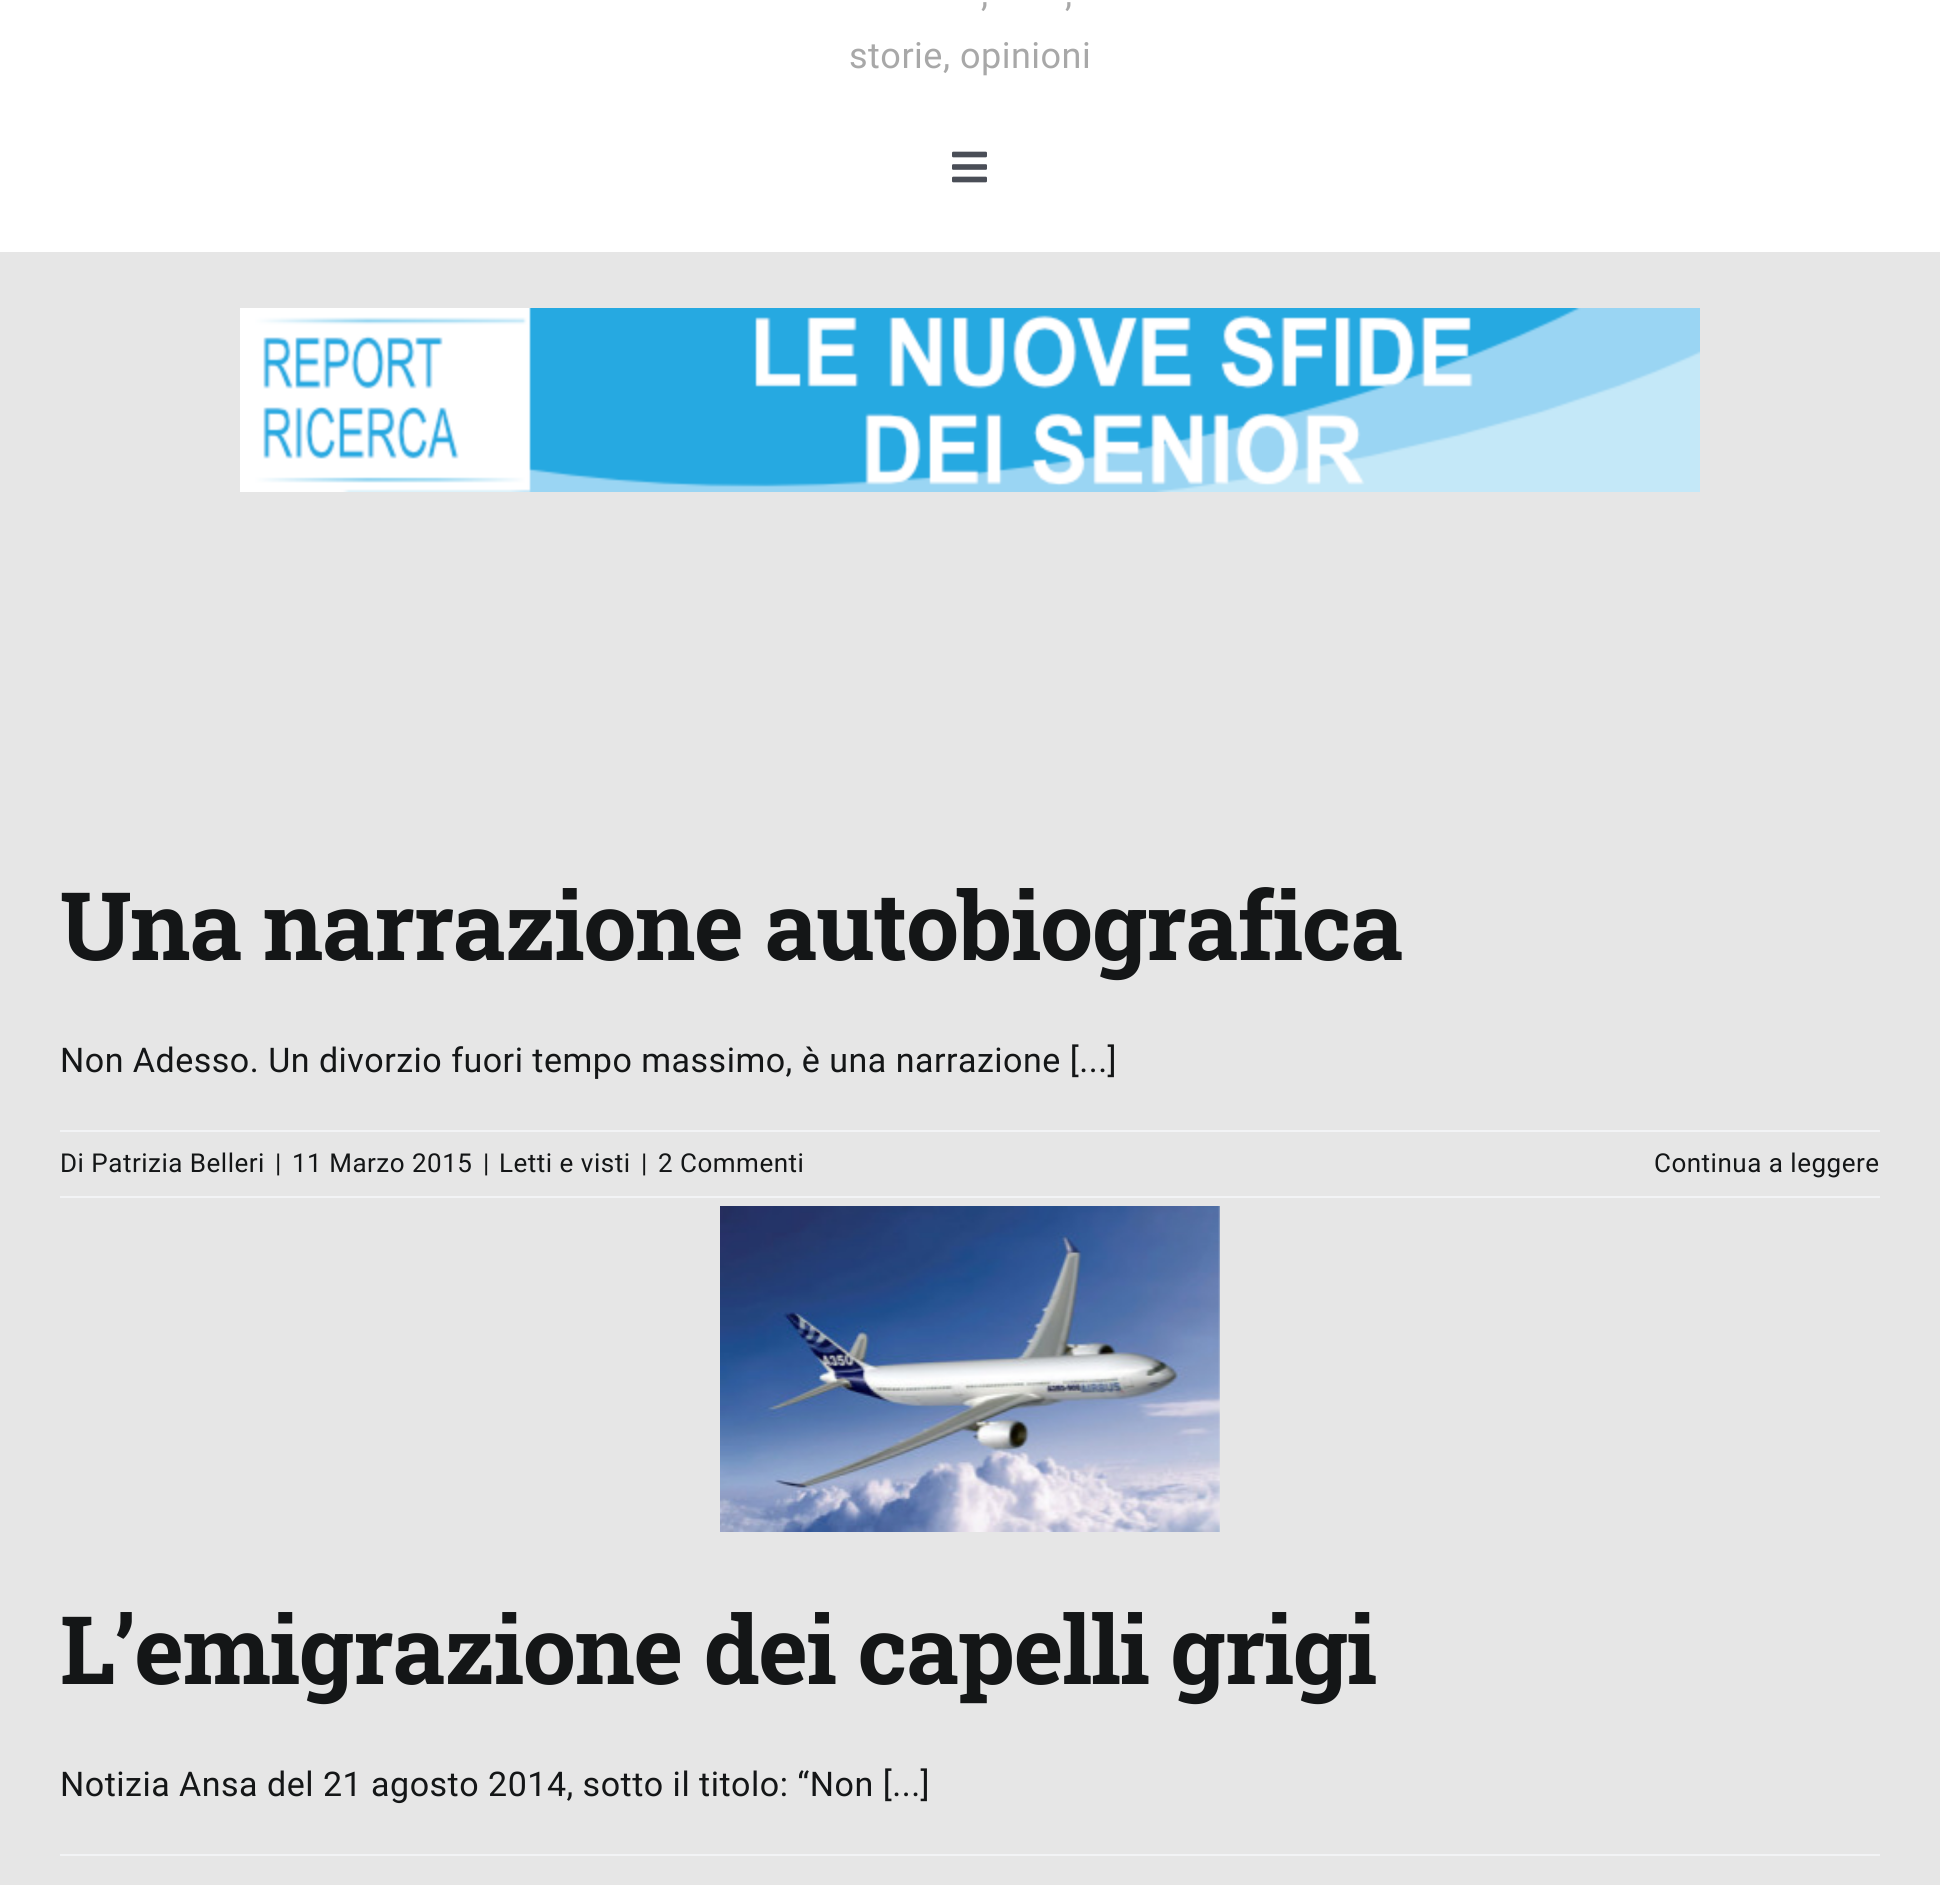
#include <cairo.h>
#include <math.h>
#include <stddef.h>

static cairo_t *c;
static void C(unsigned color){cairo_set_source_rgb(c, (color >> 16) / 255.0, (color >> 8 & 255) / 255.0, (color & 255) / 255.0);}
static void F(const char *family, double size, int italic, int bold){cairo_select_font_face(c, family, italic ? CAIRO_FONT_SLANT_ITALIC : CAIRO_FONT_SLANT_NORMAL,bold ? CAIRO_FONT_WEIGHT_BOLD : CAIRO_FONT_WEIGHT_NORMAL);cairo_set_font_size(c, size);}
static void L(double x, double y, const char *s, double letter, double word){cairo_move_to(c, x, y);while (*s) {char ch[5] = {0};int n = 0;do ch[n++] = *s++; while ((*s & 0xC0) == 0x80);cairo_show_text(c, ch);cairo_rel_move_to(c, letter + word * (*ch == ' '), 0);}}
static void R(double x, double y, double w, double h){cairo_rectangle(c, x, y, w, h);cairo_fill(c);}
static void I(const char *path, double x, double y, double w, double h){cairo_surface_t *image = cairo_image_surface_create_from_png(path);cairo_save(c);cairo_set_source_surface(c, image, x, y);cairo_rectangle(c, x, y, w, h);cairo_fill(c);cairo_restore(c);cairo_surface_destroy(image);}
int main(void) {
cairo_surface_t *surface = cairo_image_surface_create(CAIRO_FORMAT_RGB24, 1940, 1885);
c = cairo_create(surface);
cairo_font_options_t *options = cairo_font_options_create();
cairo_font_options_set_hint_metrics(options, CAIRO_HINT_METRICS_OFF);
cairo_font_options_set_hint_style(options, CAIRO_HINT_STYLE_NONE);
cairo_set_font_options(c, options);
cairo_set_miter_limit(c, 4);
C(0xe6e6e6);
cairo_paint(c);
C(0xffffff);
R(0,0,1940,252);
F("Roboto",36,0,0);
C(0xa8a8a8);
L(981,6,",",.5,0);
L(1065,6,",",.5,0);
L(849,68,"storie, opinioni",.5,0);
I("1.png",952,151,35,32);
I("2.png",240,308,1460,184);
F("Roboto Slab",94.5,0,1);
C(0x141617);
L(60,960,"Una narrazione autobiografica",-1.4,0);
F("Roboto",34,0,0);
L(60,1072,"Non Adesso. Un divorzio fuori tempo massimo, è una narrazione [...]",.5,0);
C(0xf2f3f5);
R(60,1130,1820,2);
R(60,1196,1820,2);
F("Roboto",26,0,0);
C(0x141617);
L(60,1172,"Di Patrizia Belleri",.5,0);
L(275,1172,"|",.5,0);
L(292,1172,"11 Marzo 2015",.5,0);
L(483,1172,"|",.5,0);
L(499,1172,"Letti e visti",.5,0);
L(641,1172,"|",.5,0);
L(658,1172,"2 Commenti",.5,0);
L(1654,1172,"Continua a leggere",.5,0);
I("3.png",720,1206,500,326);
F("Roboto Slab",94.5,0,1);
L(60,1684,"L’emigrazione dei capelli grigi",-1.4,0);
F("Roboto",34,0,0);
L(60,1796,"Notizia Ansa del 21 agosto 2014, sotto il titolo: “Non [...]",.5,0);
C(0xf2f3f5);
R(60,1854,1820,2);
cairo_surface_write_to_png(surface, "o.png");
cairo_font_options_destroy(options);
cairo_destroy(c);
cairo_surface_destroy(surface);
return 0;
}
